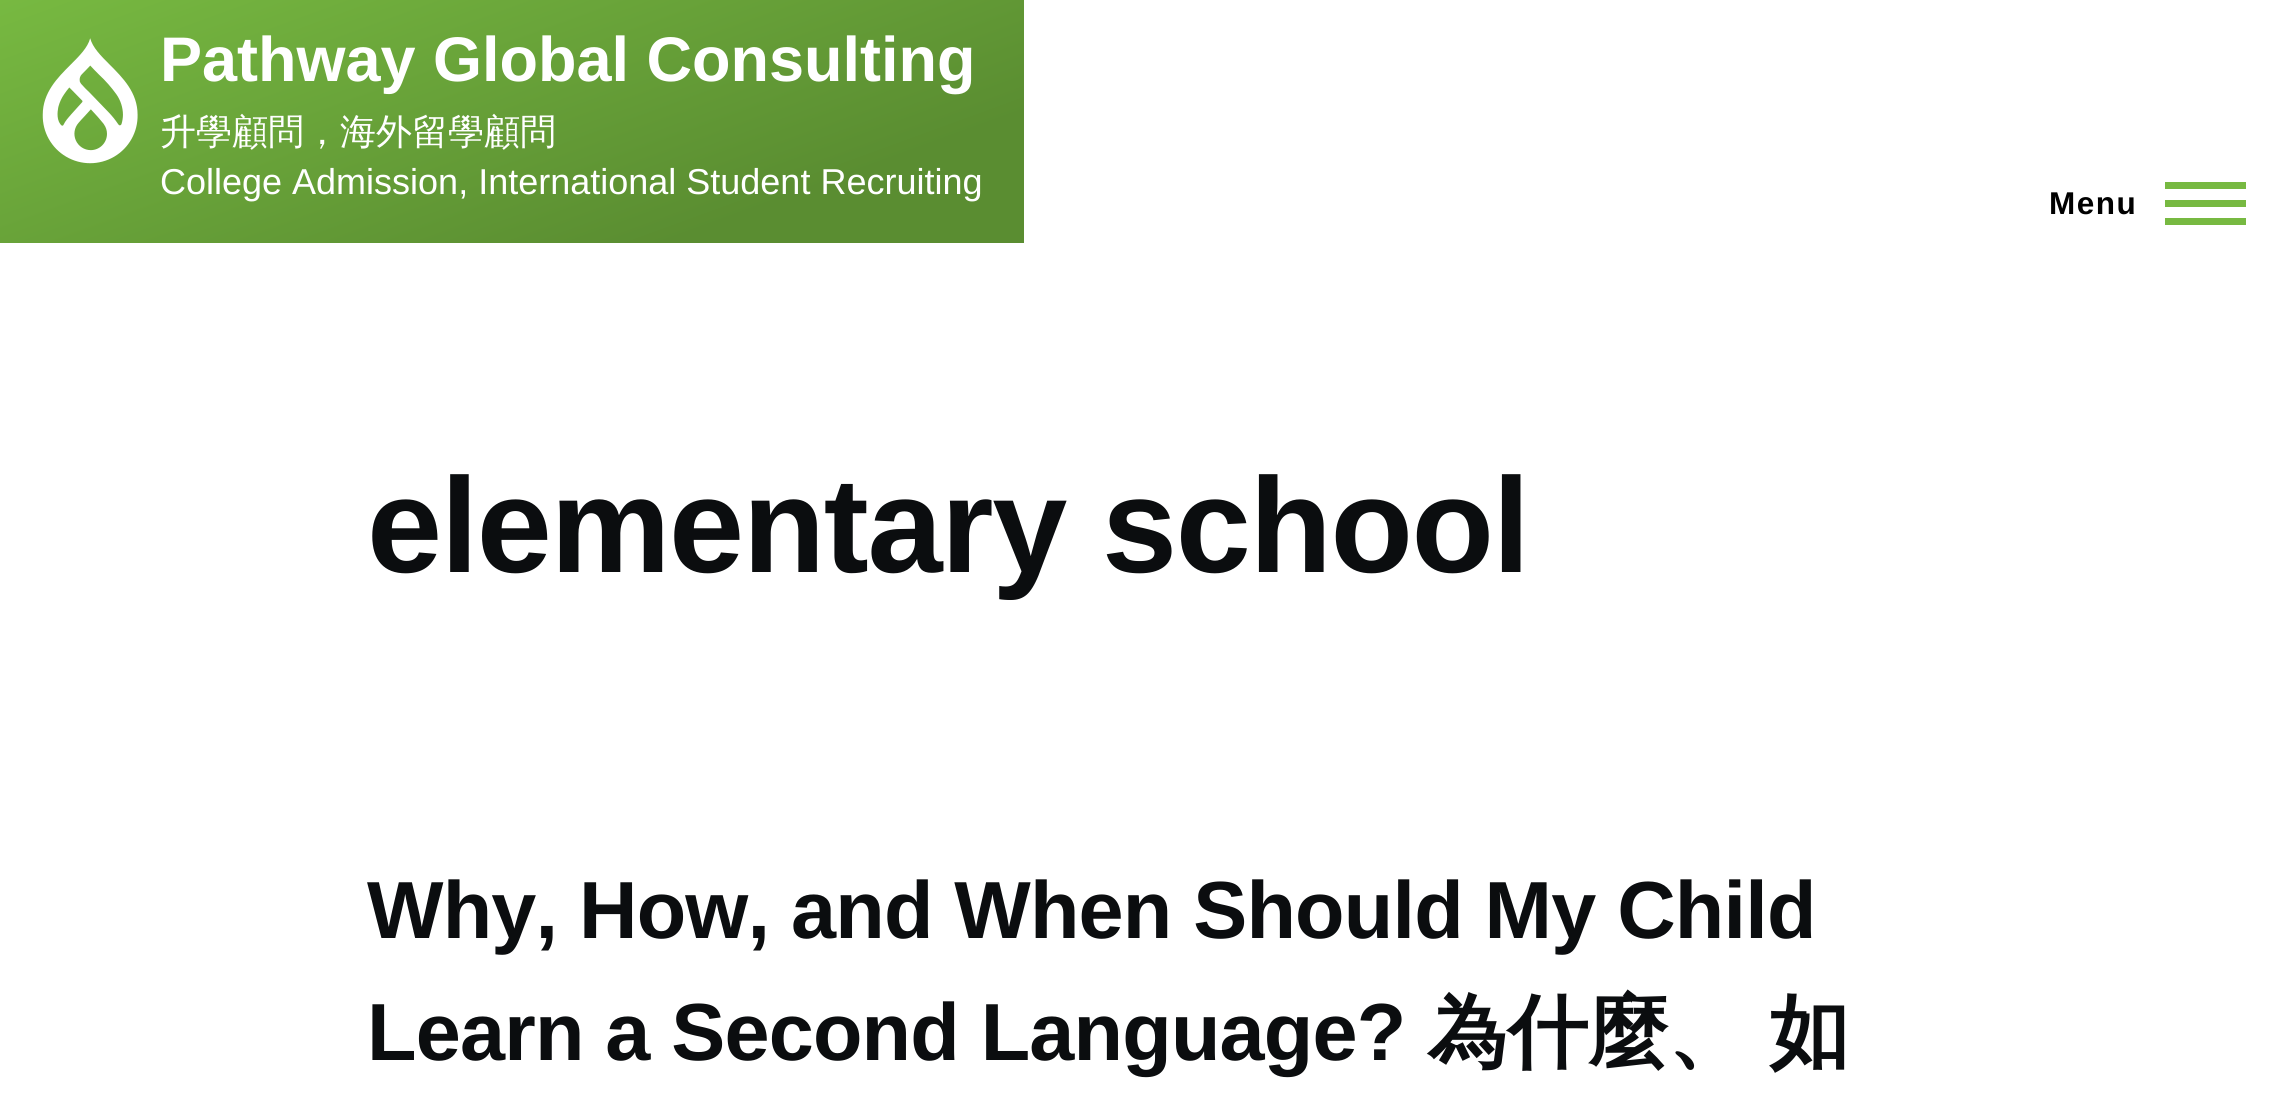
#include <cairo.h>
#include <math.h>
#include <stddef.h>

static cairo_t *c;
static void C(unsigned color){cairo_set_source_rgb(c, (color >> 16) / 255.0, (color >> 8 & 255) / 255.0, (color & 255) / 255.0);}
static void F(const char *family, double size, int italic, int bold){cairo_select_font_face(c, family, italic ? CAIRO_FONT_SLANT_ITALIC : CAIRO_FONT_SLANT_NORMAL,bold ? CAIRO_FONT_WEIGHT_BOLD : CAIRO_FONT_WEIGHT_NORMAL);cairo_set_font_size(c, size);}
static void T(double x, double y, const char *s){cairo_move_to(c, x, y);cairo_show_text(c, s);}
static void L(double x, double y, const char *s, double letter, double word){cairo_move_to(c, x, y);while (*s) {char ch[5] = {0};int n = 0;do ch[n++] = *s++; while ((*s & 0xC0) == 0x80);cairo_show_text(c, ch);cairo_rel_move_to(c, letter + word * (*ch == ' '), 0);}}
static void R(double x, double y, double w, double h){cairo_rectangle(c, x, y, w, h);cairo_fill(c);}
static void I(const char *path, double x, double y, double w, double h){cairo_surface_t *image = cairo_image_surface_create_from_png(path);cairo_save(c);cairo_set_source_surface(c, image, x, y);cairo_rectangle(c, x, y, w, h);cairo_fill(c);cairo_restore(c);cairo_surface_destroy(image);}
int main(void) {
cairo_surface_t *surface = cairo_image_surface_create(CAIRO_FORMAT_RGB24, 2284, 1114);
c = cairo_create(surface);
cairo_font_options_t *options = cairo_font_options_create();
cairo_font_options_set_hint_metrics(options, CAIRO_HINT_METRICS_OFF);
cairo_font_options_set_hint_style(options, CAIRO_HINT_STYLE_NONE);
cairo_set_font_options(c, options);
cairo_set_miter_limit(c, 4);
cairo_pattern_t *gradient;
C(0xffffff);
cairo_paint(c);
gradient = cairo_pattern_create_linear(413,-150,611,393);
cairo_pattern_add_color_stop_rgba(gradient,0,0.467,0.725,0.255,1);
cairo_pattern_add_color_stop_rgba(gradient,.79,0.353,0.553,0.192,1);
cairo_set_source(c,gradient);
cairo_pattern_destroy(gradient);
R(0,0,1024,243);
I("1.png",42,38,96,126);
F("Liberation Sans",63,0,1);
C(0xffffff);
T(160,81,"Pathway Global Consulting");
F("WenQuanYi Zen Hei Medium",36,0,0);
T(160,144,"升學顧問，海外留學顧問");
F("Liberation Sans",36,0,0);
T(160,194,"College Admission, International Student Recruiting");
F("Liberation Sans",31.5,0,1);
C(0x000000);
L(2049,214,"Menu",1.5,0);
C(0x77b941);
R(2165,200,81,7);
R(2165,182,81,7);
R(2165,218,81,7);
F("Liberation Sans",135,0,1);
C(0x0b0d0f);
L(367,572,"elementary school",-1.4,0);
F("Liberation Sans",81,0,1);
L(367,938,"Why, How, and When Should My Child",-.8,0);
L(367,1060,"Learn a Second Language?",-.8,0);
F("WenQuanYi Zen Hei",81,0,1);
L(1427,1060,"為什麼、",-.8,0);
L(1769,1060,"如",-.8,0);
cairo_surface_write_to_png(surface, "o.png");
cairo_font_options_destroy(options);
cairo_destroy(c);
cairo_surface_destroy(surface);
return 0;
}
